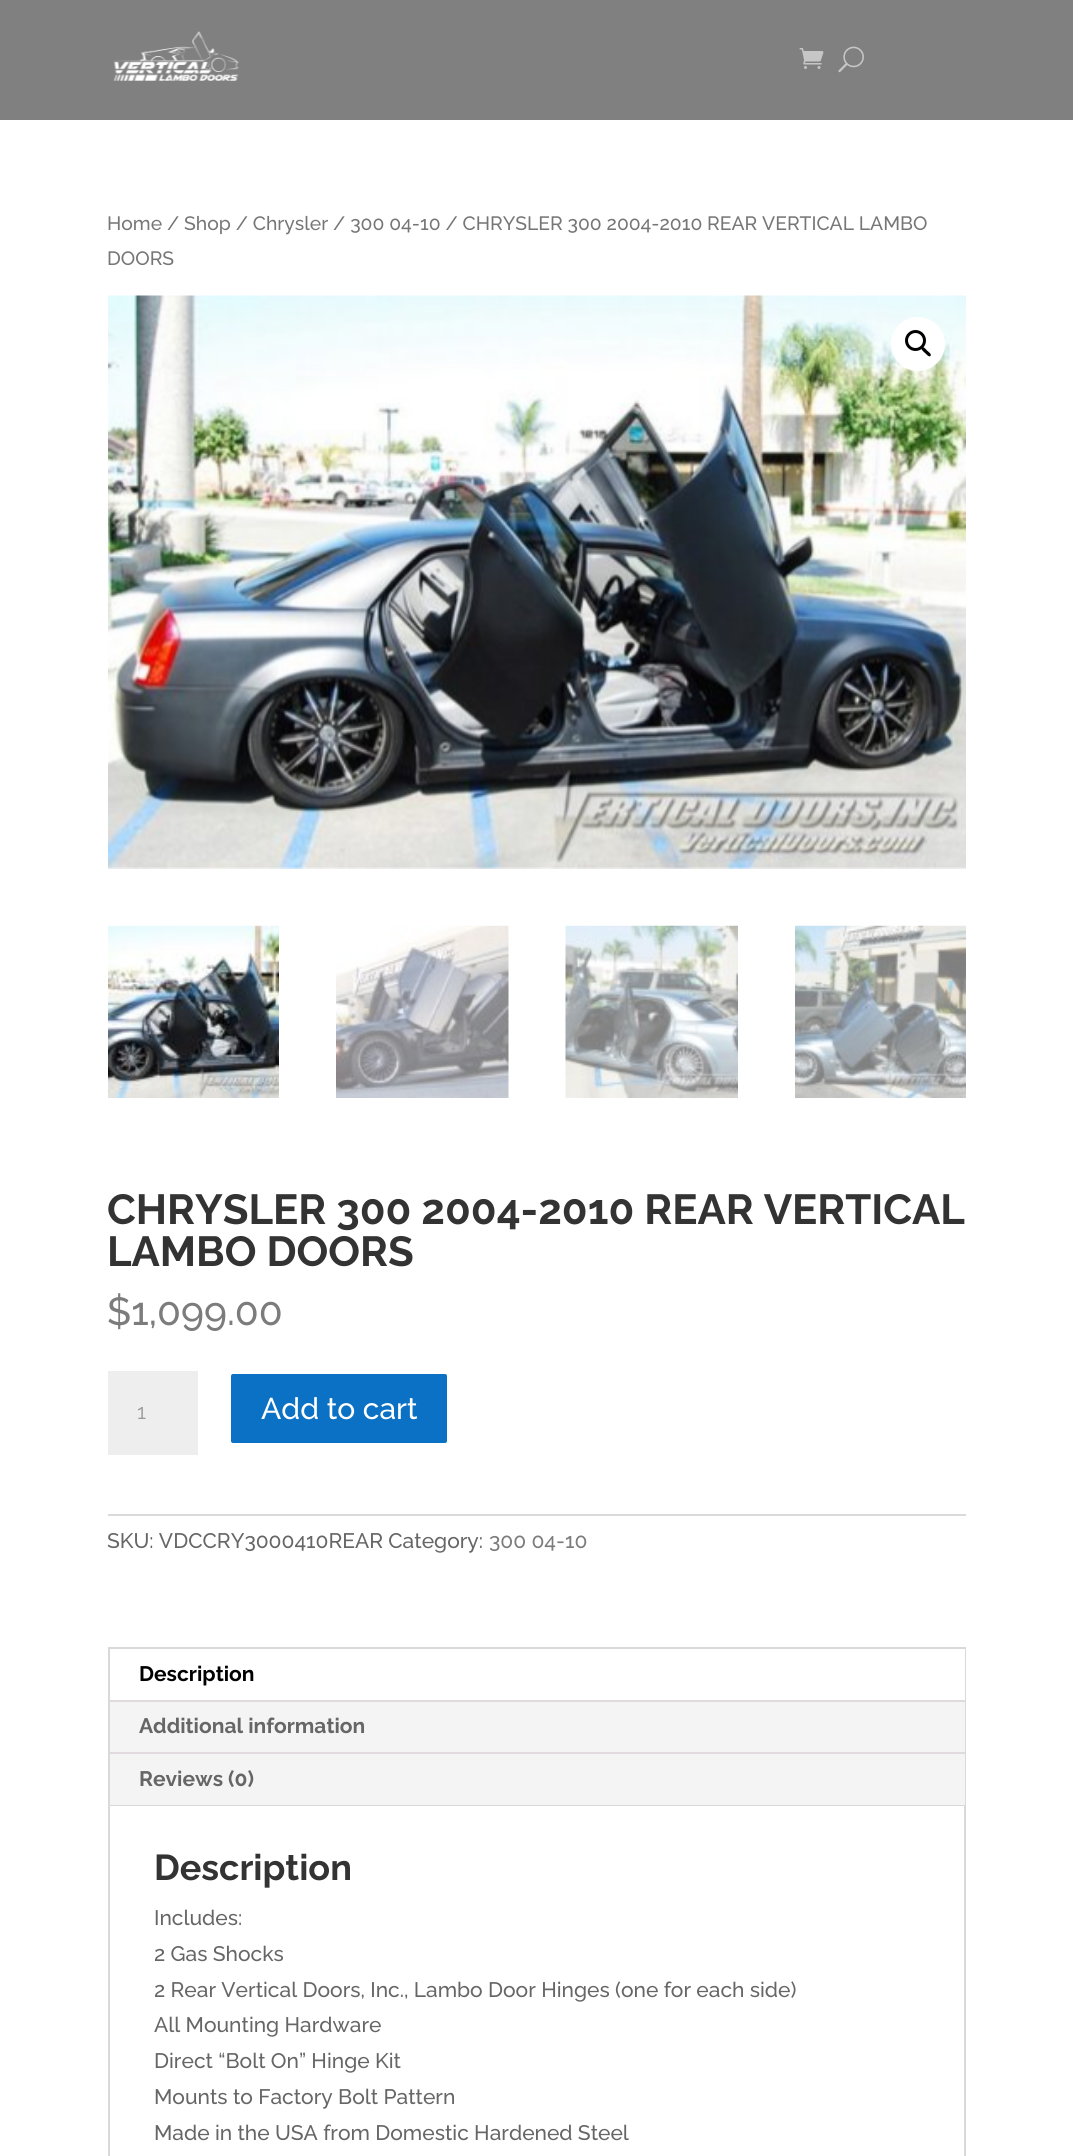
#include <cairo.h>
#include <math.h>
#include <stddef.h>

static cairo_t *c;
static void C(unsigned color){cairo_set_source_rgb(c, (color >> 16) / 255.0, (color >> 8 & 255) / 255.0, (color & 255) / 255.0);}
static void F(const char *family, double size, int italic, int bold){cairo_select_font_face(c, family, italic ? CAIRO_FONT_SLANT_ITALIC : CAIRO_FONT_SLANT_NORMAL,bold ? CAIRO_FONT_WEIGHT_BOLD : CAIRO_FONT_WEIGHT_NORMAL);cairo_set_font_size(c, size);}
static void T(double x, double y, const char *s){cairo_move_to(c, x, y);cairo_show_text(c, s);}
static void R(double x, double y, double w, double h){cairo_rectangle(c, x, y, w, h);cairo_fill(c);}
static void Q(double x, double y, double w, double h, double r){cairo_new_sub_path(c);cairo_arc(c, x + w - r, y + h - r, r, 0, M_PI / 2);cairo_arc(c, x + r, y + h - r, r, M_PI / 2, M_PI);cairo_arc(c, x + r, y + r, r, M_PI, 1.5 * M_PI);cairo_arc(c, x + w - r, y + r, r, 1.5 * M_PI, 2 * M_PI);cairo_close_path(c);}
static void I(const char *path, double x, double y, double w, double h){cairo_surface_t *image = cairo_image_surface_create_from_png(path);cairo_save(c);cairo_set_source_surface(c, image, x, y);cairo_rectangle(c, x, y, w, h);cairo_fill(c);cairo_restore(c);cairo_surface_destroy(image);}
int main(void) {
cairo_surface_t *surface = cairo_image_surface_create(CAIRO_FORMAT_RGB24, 1073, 2156);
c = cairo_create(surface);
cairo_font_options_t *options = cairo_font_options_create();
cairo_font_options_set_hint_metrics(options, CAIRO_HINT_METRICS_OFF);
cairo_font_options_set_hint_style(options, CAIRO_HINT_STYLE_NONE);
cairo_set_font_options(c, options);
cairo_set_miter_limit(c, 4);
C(0xffffff);
cairo_paint(c);
C(0x808080);
R(0,0,1073,120);
I("1.png",113,31,126,50);
I("2.png",799,48,25,21);
I("3.png",838,46,26,27);
F("Raleway Medium",19.3,0,0);
C(0x767676);
T(107,230,"Home / Shop / Chrysler / 300 04-10 / CHRYSLER 300 2004-2010 REAR VERTICAL LAMBO");
T(107,265,"DOORS");
I("4.png",108,295,858,574);
C(0xffffff);
cairo_arc(c,918,344,27,0,2 * M_PI);
cairo_fill(c);
cairo_arc(c,915.5,340.5,9,0,2 * M_PI);
C(0x000000);
cairo_set_line_width(c,3);
cairo_stroke(c);
cairo_new_path(c);
cairo_move_to(c,922,347.5);
cairo_curve_to(c,923.5,346,926,349.5,927,350.5);
cairo_curve_to(c,928,351.5,932,354,930.5,356);
cairo_curve_to(c,928.5,357.5,926,353.5,925,353);
cairo_curve_to(c,924,352,920,349,922,347.5);
cairo_close_path(c);
cairo_fill(c);
I("5.png",108,925,171,173);
I("6.png",336,925,173,173);
I("7.png",565,925,173,173);
I("8.png",795,925,171,173);
F("Raleway",42,0,1);
C(0x333333);
T(107,1224,"CHRYSLER 300 2004-2010 REAR VERTICAL");
T(107,1266,"LAMBO DOORS");
F("Raleway Medium",39,0,0);
C(0x7c7c7c);
T(107,1325,"$1,099.00");
C(0xeeeeee);
R(108,1371,90,84);
F("Raleway",21,0,0);
C(0x999999);
T(137,1419,"1");
C(0x0b71c4);
Q(229.5,1372.5,219,72,3.5);
cairo_fill_preserve(c);
C(0xffffff);
cairo_stroke(c);
F("Raleway Medium",30,0,0);
T(261,1419,"Add to cart");
C(0xdadada);
R(108,1514,858,2);
F("Raleway Medium",21,0,0);
C(0x666666);
T(107,1548,"SKU: VDCCRY3000410REAR Category:");
C(0x7c7c7c);
T(489,1548,"300 04-10");
cairo_rectangle(c,109,1648,856,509);
C(0xd9d9d9);
cairo_set_line_width(c,2);
cairo_stroke(c);
C(0xf4f4f4);
R(110,1702,855,103);
C(0xffffff);
R(964,1649,1,51);
C(0xe0dadf);
R(110,1700,855,2);
F("Raleway",21,0,1);
C(0x000000);
T(139,1681,"Description");
C(0xe0dadf);
R(110,1752,855,2);
C(0x666666);
T(139,1733,"Additional information");
T(139,1786,"Reviews (0)");
C(0xd9d9d9);
R(110,1805,855,1);
F("Raleway",36,0,1);
C(0x333333);
T(154,1880,"Description");
F("Raleway Medium",21,0,0);
C(0x666666);
T(154,1925,"Includes:");
T(154,1961,"2 Gas Shocks");
T(154,1997,"2 Rear Vertical Doors, Inc., Lambo Door Hinges (one for each side)");
T(154,2032,"All Mounting Hardware");
T(154,2068,"Direct “Bolt On” Hinge Kit");
T(154,2104,"Mounts to Factory Bolt Pattern");
T(154,2140,"Made in the USA from Domestic Hardened Steel");
cairo_surface_write_to_png(surface, "o.png");
cairo_font_options_destroy(options);
cairo_destroy(c);
cairo_surface_destroy(surface);
return 0;
}
